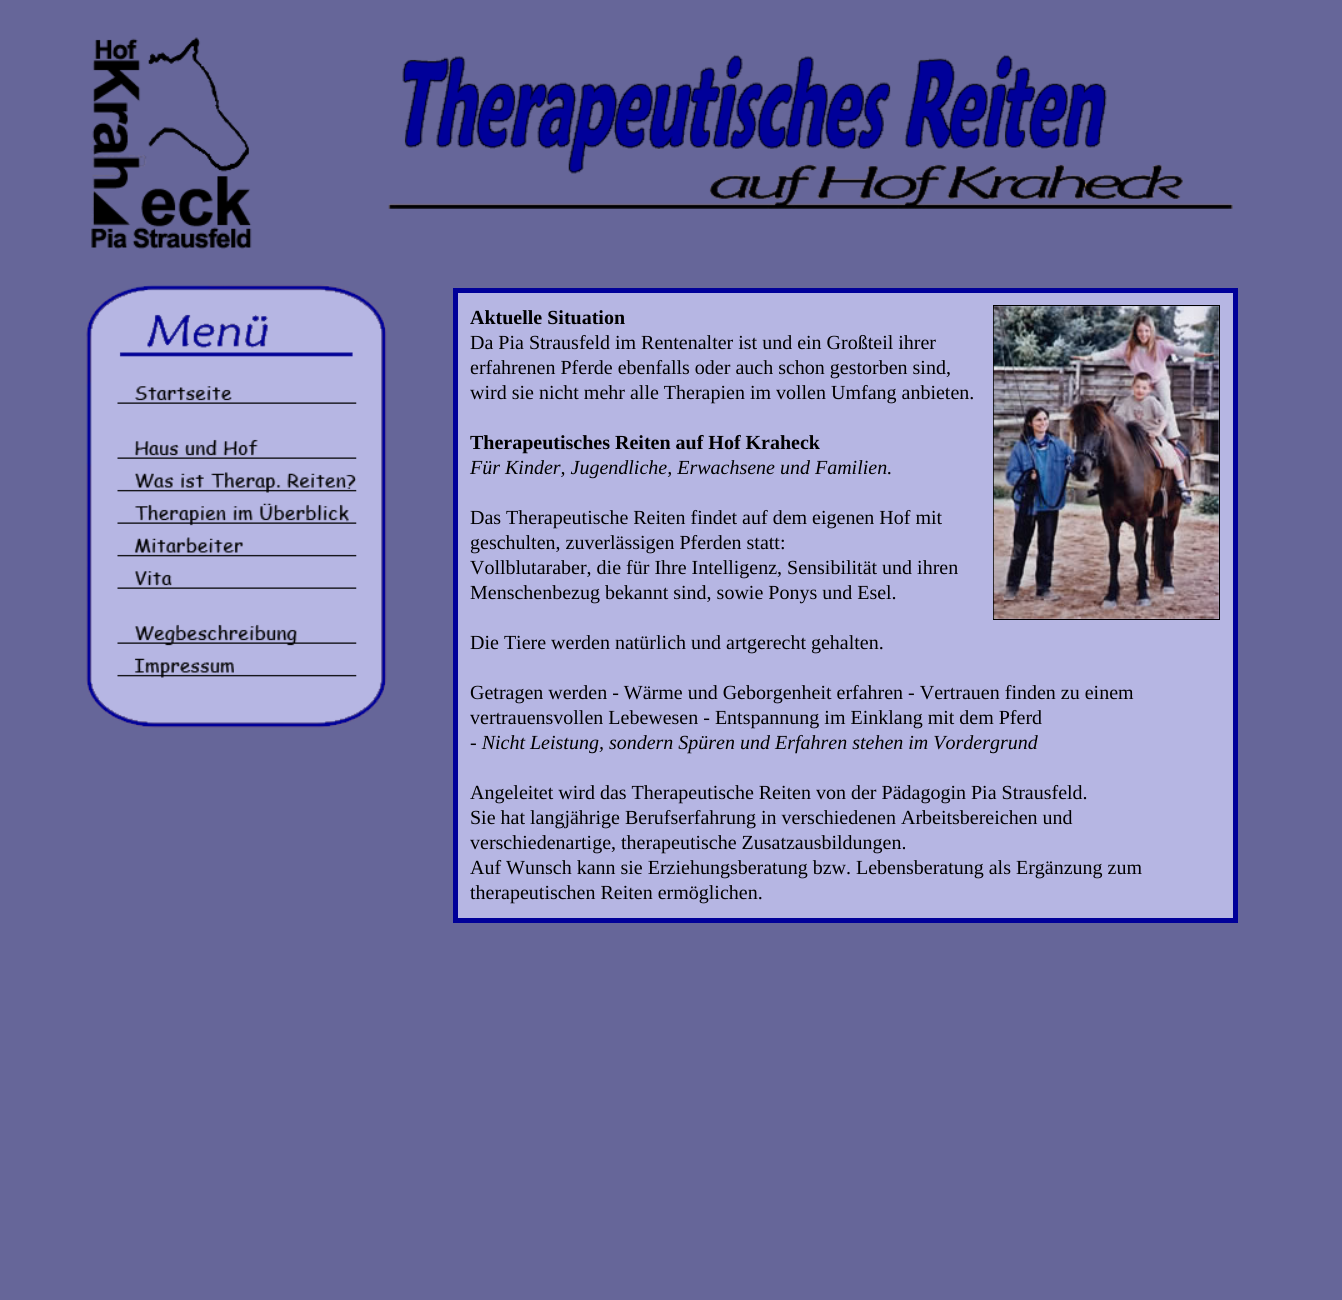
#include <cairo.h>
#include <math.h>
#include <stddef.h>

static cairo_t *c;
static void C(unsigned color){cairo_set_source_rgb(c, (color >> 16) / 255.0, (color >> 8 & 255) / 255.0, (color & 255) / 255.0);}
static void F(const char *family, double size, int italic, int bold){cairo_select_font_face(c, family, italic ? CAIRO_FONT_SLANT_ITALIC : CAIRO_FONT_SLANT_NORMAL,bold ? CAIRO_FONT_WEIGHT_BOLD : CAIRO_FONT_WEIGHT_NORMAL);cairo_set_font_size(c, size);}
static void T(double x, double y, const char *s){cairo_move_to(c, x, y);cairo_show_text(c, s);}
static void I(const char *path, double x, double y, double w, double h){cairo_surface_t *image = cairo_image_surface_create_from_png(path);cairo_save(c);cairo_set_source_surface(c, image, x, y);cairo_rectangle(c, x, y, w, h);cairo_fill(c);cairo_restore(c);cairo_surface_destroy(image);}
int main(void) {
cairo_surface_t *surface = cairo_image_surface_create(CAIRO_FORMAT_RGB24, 1342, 1300);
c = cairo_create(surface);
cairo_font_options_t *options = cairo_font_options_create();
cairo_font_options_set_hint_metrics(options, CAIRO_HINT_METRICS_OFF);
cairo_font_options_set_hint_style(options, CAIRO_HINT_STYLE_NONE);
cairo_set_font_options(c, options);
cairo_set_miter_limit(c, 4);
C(0x666699);
cairo_paint(c);
I("1.png",86,37,1147,691);
I("2.png",117,386,240,18);
I("3.png",117,439,240,20);
I("4.png",117,472,240,21);
I("5.png",117,503,240,23);
I("6.png",117,537,240,20);
I("7.png",117,571,240,18);
I("8.png",117,624,240,22);
I("9.png",117,658,240,20);
C(0xb6b6e3);
cairo_rectangle(c,455.5,290.5,780,630);
cairo_fill_preserve(c);
C(0x000099);
cairo_set_line_width(c,5);
cairo_stroke(c);
F("Liberation Serif",20,0,1);
C(0x000000);
T(470,324,"Aktuelle Situation");
cairo_rectangle(c,993.5,305.5,226,314);
cairo_set_line_width(c,1);
cairo_stroke(c);
I("10.png",993,306,226,313);
F("Liberation Serif",20,0,0);
T(470,349,"Da Pia Strausfeld im Rentenalter ist und ein Großteil ihrer");
T(470,374,"erfahrenen Pferde ebenfalls oder auch schon gestorben sind,");
T(470,399,"wird sie nicht mehr alle Therapien im vollen Umfang anbieten.");
F("Liberation Serif",20,0,1);
T(470,449,"Therapeutisches Reiten auf Hof Kraheck");
F("Liberation Serif",20,1,0);
T(470,474,"Für Kinder, Jugendliche, Erwachsene und Familien.");
F("Liberation Serif",20,0,0);
T(470,524,"Das Therapeutische Reiten findet auf dem eigenen Hof mit");
T(470,549,"geschulten, zuverlässigen Pferden statt:");
T(470,574,"Vollblutaraber, die für Ihre Intelligenz, Sensibilität und ihren");
T(470,599,"Menschenbezug bekannt sind, sowie Ponys und Esel.");
T(470,649,"Die Tiere werden natürlich und artgerecht gehalten.");
T(470,699,"Getragen werden - Wärme und Geborgenheit erfahren - Vertrauen finden zu einem");
T(470,724,"vertrauensvollen Lebewesen - Entspannung im Einklang mit dem Pferd");
F("Liberation Serif",20,1,0);
T(470,749,"- Nicht Leistung, sondern Spüren und Erfahren stehen im Vordergrund");
F("Liberation Serif",20,0,0);
T(470,799,"Angeleitet wird das Therapeutische Reiten von der Pädagogin Pia Strausfeld.");
T(470,824,"Sie hat langjährige Berufserfahrung in verschiedenen Arbeitsbereichen und");
T(470,849,"verschiedenartige, therapeutische Zusatzausbildungen.");
T(470,874,"Auf Wunsch kann sie Erziehungsberatung bzw. Lebensberatung als Ergänzung zum");
T(470,899,"therapeutischen Reiten ermöglichen.");
cairo_surface_write_to_png(surface, "o.png");
cairo_font_options_destroy(options);
cairo_destroy(c);
cairo_surface_destroy(surface);
return 0;
}
